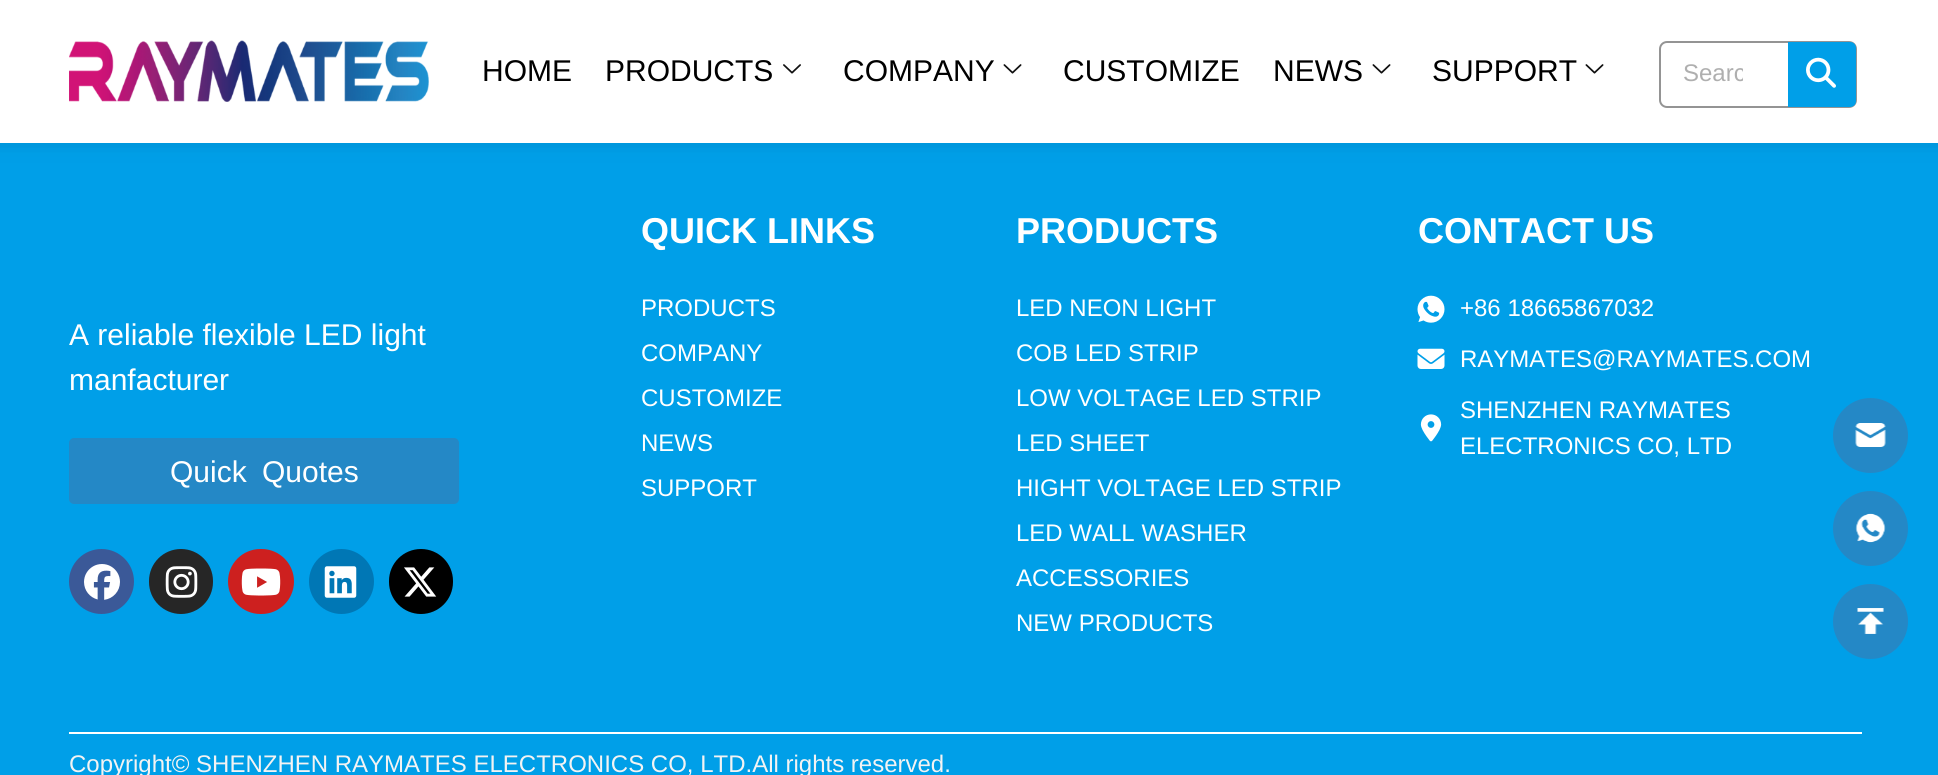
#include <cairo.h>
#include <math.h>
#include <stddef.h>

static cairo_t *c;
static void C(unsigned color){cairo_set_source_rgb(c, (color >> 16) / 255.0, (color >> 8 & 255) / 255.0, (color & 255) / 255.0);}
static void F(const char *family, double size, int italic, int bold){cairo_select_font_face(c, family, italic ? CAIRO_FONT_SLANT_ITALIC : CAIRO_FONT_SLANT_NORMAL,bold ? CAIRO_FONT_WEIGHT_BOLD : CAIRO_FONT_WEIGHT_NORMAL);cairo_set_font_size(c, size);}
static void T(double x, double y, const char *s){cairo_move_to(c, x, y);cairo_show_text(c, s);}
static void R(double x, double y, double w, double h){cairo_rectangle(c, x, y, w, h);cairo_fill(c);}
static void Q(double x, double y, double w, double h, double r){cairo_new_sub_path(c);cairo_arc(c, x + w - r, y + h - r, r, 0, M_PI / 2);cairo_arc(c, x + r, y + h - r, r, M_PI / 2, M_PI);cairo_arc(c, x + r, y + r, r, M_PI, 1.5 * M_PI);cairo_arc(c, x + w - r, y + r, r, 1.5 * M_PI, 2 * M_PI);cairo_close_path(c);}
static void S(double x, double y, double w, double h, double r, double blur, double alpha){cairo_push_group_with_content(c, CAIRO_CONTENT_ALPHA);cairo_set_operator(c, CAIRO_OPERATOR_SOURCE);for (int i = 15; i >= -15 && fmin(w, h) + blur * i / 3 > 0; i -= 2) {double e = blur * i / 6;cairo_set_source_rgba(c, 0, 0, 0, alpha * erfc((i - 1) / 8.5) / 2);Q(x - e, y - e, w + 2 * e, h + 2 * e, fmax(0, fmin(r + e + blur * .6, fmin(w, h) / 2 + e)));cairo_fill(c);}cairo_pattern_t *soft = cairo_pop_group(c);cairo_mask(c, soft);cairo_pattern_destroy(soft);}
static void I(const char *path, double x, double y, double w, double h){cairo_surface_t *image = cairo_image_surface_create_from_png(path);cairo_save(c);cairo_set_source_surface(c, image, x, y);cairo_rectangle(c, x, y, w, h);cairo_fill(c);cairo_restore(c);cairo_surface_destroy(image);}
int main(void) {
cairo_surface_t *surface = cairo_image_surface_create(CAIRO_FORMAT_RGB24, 1938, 775);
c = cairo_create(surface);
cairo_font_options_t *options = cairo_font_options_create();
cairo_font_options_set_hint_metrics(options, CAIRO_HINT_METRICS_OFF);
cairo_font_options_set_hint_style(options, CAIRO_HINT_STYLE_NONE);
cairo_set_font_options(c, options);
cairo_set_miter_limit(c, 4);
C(0x009fe8);
cairo_paint(c);
C(0x000000);
S(-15,-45,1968,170,0,15,.5);
C(0xffffff);
R(0,0,1938,143);
I("1.png",69,40,360,62);
F("Liberation Sans",30,0,0);
C(0x000000);
T(482,81,"HOME");
T(605,81,"PRODUCTS");
I("2.png",783,64,18,10);
T(843,81,"COMPANY");
I("3.png",1003,64,19,10);
T(1063,81,"CUSTOMIZE");
T(1273,81,"NEWS");
I("3.png",1372,64,19,10);
T(1432,81,"SUPPORT");
I("3.png",1585,64,19,10);
Q(1660,42,196,65,7);
C(0x949494);
cairo_stroke(c);
cairo_save(c);
cairo_rectangle(c,1683,60,60,27);
cairo_clip(c);
F("Liberation Sans",24,0,0);
C(0xafafaf);
T(1683,81,"Searc");
cairo_restore(c);
C(0x009fe8);
cairo_new_path(c);
cairo_move_to(c,1788,42);
cairo_line_to(c,1850,42);
cairo_curve_to(c,1853.5,42,1856,44.5,1856,48);
cairo_line_to(c,1856,101);
cairo_curve_to(c,1856,104.5,1853.5,107,1850,107);
cairo_line_to(c,1788,107);
cairo_close_path(c);
cairo_fill(c);
I("4.png",1806,57,30,31);
C(0xffffff);
T(69,345,"A reliable flexible LED light");
T(69,390,"manfacturer");
C(0x2488c6);
Q(69,438,390,66,5);
cairo_fill(c);
C(0xffffff);
T(170,482,"Quick");
T(262,482,"Quotes");
C(0x3b5998);
cairo_new_path(c);
cairo_arc(c,101.5,581.5,32.5,0,2 * M_PI);
cairo_fill(c);
I("5.png",84,564,36,36);
C(0x262626);
Q(149,549,64,65,32);
cairo_fill(c);
I("6.png",165,566,33,32);
C(0xcd201f);
Q(228,549,66,65,32.5);
cairo_fill(c);
I("7.png",241,568,40,28);
C(0x0077b5);
cairo_arc(c,341.5,581.5,32.5,0,2 * M_PI);
cairo_fill(c);
I("8.png",324,566,33,32);
C(0x000000);
Q(389,549,64,65,32);
cairo_fill(c);
I("9.png",404,567,33,30);
F("Liberation Sans",36,0,1);
C(0xffffff);
T(641,243,"QUICK LINKS");
F("Liberation Sans",24,0,0);
T(641,316,"PRODUCTS");
T(641,361,"COMPANY");
T(641,406,"CUSTOMIZE");
T(641,451,"NEWS");
T(641,496,"SUPPORT");
F("Liberation Sans",36,0,1);
T(1016,243,"PRODUCTS");
F("Liberation Sans",24,0,0);
T(1016,316,"LED NEON LIGHT");
T(1016,361,"COB LED STRIP");
T(1016,406,"LOW VOLTAGE LED STRIP");
T(1016,451,"LED SHEET");
T(1016,496,"HIGHT VOLTAGE LED STRIP");
T(1016,541,"LED WALL WASHER");
T(1016,586,"ACCESSORIES");
T(1016,631,"NEW PRODUCTS");
F("Liberation Sans",36,0,1);
T(1418,243,"CONTACT US");
I("10.png",1417,295,28,28);
F("Liberation Sans",24,0,0);
T(1460,316,"+86 18665867032");
I("11.png",1417,348,28,21);
T(1460,367,"RAYMATES@RAYMATES.COM");
I("12.png",1420,414,22,28);
T(1460,418,"SHENZHEN RAYMATES");
T(1460,454,"ELECTRONICS CO, LTD");
C(0x2488c6);
cairo_new_path(c);
cairo_arc(c,1870.5,435.5,37.5,0,2 * M_PI);
cairo_fill(c);
I("13.png",1855,423,31,24);
cairo_arc(c,1870.5,528.5,37.5,0,2 * M_PI);
cairo_fill(c);
I("14.png",1855,513,31,30);
cairo_arc(c,1870.5,621.5,37.5,0,2 * M_PI);
cairo_fill(c);
I("15.png",1857,608,27,26);
C(0xffffff);
R(69,732,1793,2);
C(0xf3f3f3);
T(69,772,"Copyright© SHENZHEN RAYMATES ELECTRONICS CO, LTD.All rights reserved.");
cairo_surface_write_to_png(surface, "o.png");
cairo_font_options_destroy(options);
cairo_destroy(c);
cairo_surface_destroy(surface);
return 0;
}
